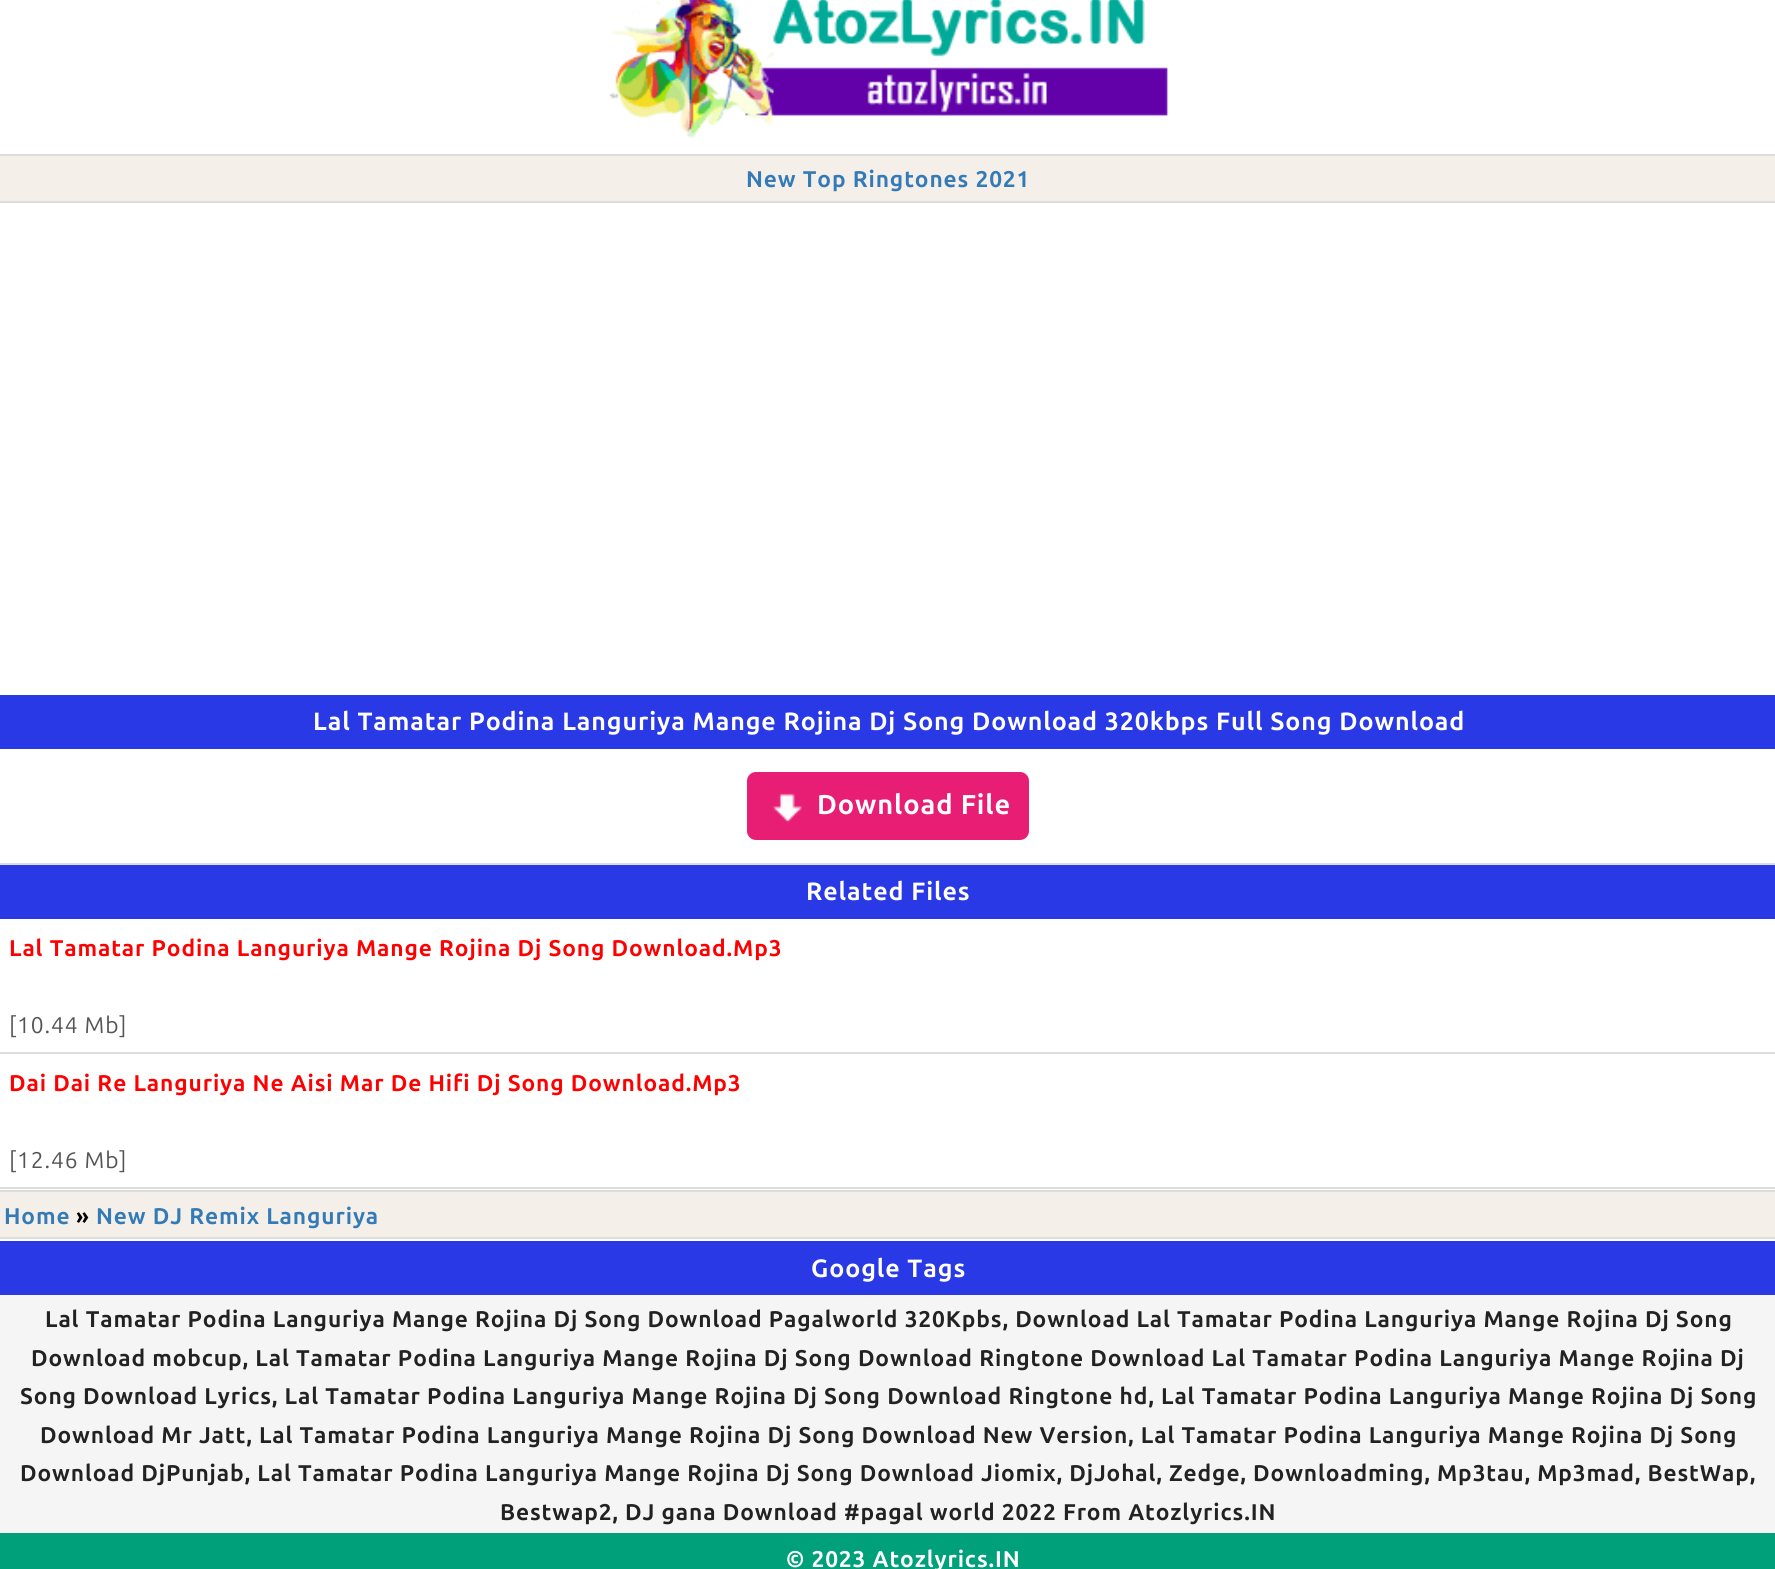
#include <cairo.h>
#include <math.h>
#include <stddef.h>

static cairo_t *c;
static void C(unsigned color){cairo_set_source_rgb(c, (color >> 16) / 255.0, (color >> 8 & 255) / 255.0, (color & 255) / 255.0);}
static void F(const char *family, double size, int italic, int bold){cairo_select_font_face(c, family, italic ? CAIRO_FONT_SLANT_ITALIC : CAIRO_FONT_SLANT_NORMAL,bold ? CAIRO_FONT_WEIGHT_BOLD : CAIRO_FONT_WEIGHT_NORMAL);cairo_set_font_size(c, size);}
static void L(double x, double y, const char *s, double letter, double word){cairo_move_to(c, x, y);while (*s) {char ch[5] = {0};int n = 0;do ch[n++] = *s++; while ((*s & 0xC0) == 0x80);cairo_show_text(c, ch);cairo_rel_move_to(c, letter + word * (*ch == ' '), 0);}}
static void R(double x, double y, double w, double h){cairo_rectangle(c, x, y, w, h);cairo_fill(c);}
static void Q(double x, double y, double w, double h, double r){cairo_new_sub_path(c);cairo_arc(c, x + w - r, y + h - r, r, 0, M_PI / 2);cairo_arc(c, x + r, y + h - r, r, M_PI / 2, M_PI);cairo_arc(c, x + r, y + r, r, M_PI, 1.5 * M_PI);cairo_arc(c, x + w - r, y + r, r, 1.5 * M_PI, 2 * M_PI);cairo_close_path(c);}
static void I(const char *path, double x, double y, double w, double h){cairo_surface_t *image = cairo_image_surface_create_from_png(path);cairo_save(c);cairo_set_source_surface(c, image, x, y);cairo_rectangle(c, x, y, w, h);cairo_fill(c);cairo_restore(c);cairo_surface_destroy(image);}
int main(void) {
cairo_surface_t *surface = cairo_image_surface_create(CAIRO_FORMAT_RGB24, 1775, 1569);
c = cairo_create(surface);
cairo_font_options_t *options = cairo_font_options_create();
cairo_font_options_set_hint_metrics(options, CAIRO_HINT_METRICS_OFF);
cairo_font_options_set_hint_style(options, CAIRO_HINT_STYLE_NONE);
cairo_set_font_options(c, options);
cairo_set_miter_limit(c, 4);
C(0xffffff);
cairo_paint(c);
I("1.png",609,0,559,138);
C(0xf4f0e9);
R(0,156,1775,45);
C(0xdddddd);
R(0,154,1775,2);
R(0,201,1775,2);
F("Ubuntu",22.75,0,1);
C(0x337ab7);
L(746,187,"New Top Ringtones 2021",.88,0);
C(0x2939e5);
R(0,695,1775,54);
F("Ubuntu",25.05,0,1);
C(0xffffff);
L(313,730,"Lal Tamatar Podina Languriya Mange Rojina Dj Song Download 320kbps Full Song Download",.88,0);
C(0xdddddd);
R(0,863,1775,2);
C(0xe81e75);
Q(747,772,282,68,9);
cairo_fill(c);
I("2.png",773,793,29,30);
F("Ubuntu",27.25,0,1);
C(0xffffff);
L(817,814,"Download File",.88,0);
C(0x2939e5);
R(0,865,1775,54);
F("Ubuntu",25.05,0,1);
C(0xffffff);
L(806,900,"Related Files",.88,0);
C(0xdddddd);
R(0,1052,1775,2);
F("Ubuntu",22.75,0,1);
C(0xff0000);
L(9,956,"Lal Tamatar Podina Languriya Mange Rojina Dj Song Download.Mp3",.88,0);
F("Ubuntu",22.75,0,0);
C(0x555555);
L(9,1033,"[10.44 Mb]",.88,0);
C(0xdddddd);
R(0,1187,1775,2);
F("Ubuntu",22.75,0,1);
C(0xff0000);
L(9,1091,"Dai Dai Re Languriya Ne Aisi Mar De Hifi Dj Song Download.Mp3",.88,0);
F("Ubuntu",22.75,0,0);
C(0x555555);
L(9,1168,"[12.46 Mb]",.88,0);
C(0xf4f0e9);
R(0,1192,1775,45);
C(0xdddddd);
R(0,1190,1775,2);
R(0,1237,1775,2);
F("Ubuntu",22.75,0,1);
C(0x337ab7);
L(4,1224,"Home",.88,0);
C(0x000000);
L(76,1224,"»",.88,0);
C(0x337ab7);
L(96,1224,"New DJ Remix Languriya",.88,0);
C(0x2939e5);
R(0,1241,1775,54);
F("Ubuntu",25.05,0,1);
C(0xffffff);
L(811,1277,"Google Tags",.88,0);
C(0xf5f5f5);
R(0,1295,1775,238);
F("Ubuntu",22.75,0,1);
C(0x222222);
L(45,1327,"Lal Tamatar Podina Languriya Mange Rojina Dj Song Download Pagalworld 320Kpbs, Download Lal Tamatar Podina Languriya Mange Rojina Dj Song",.88,0);
L(31,1366,"Download mobcup, Lal Tamatar Podina Languriya Mange Rojina Dj Song Download Ringtone Download Lal Tamatar Podina Languriya Mange Rojina Dj",.88,0);
L(20,1404,"Song Download Lyrics, Lal Tamatar Podina Languriya Mange Rojina Dj Song Download Ringtone hd, Lal Tamatar Podina Languriya Mange Rojina Dj Song",.88,0);
L(40,1443,"Download Mr Jatt, Lal Tamatar Podina Languriya Mange Rojina Dj Song Download New Version, Lal Tamatar Podina Languriya Mange Rojina Dj Song",.88,0);
L(20,1481,"Download DjPunjab, Lal Tamatar Podina Languriya Mange Rojina Dj Song Download Jiomix, DjJohal, Zedge, Downloadming, Mp3tau, Mp3mad, BestWap,",.88,0);
L(500,1520,"Bestwap2, DJ gana Download #pagal world 2022 From Atozlyrics.IN",.88,0);
C(0x00a07a);
R(0,1533,1775,36);
C(0xffffff);
L(786,1567,"© 2023 Atozlyrics.IN",.88,0);
cairo_surface_write_to_png(surface, "o.png");
cairo_font_options_destroy(options);
cairo_destroy(c);
cairo_surface_destroy(surface);
return 0;
}
